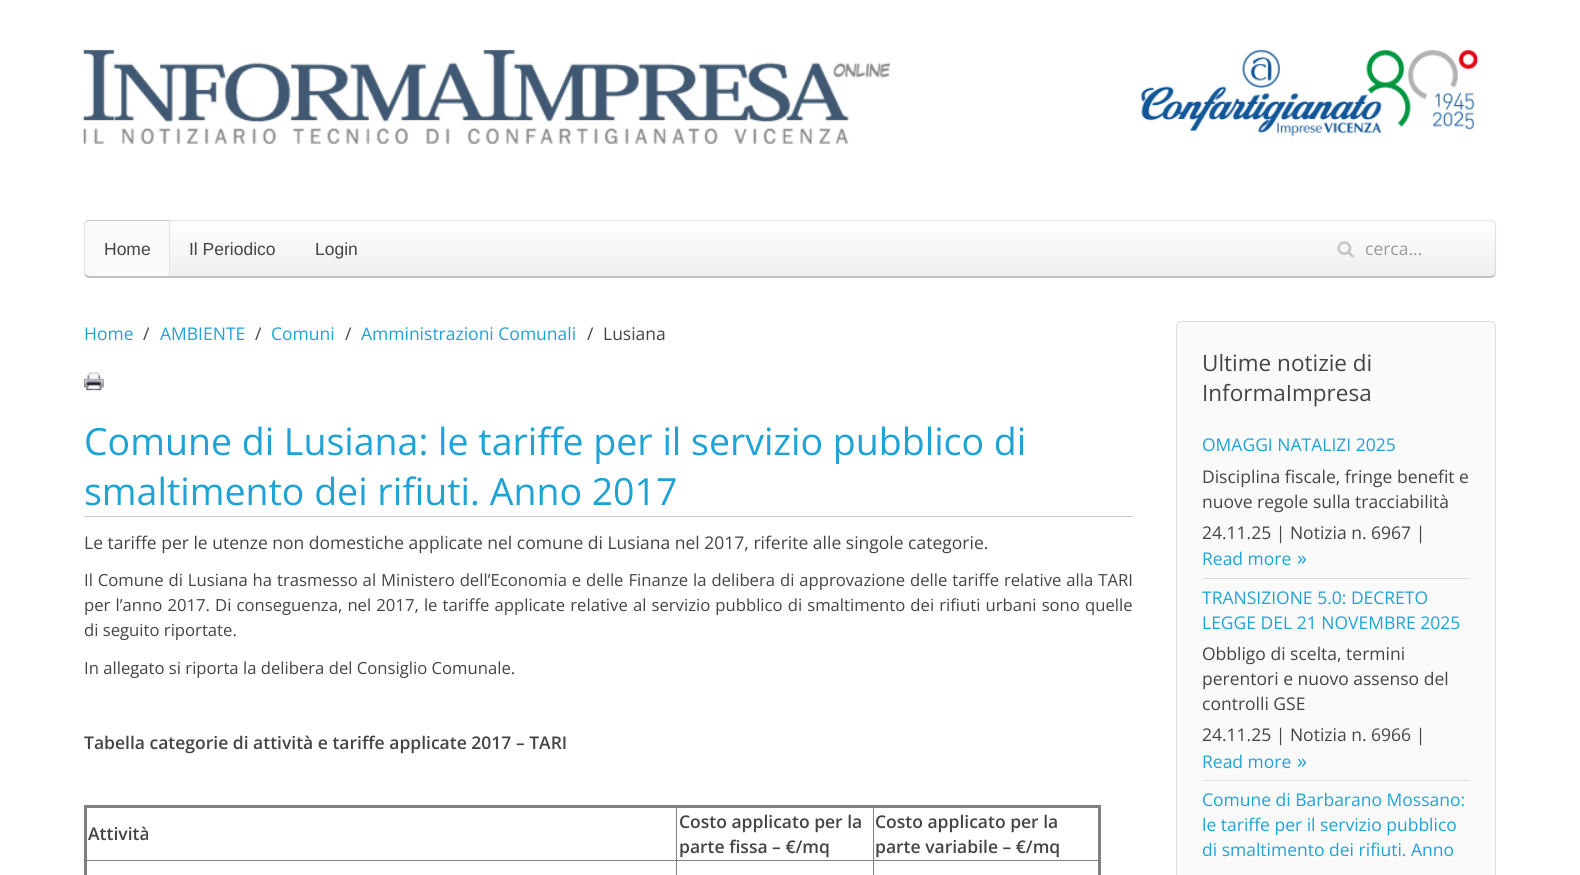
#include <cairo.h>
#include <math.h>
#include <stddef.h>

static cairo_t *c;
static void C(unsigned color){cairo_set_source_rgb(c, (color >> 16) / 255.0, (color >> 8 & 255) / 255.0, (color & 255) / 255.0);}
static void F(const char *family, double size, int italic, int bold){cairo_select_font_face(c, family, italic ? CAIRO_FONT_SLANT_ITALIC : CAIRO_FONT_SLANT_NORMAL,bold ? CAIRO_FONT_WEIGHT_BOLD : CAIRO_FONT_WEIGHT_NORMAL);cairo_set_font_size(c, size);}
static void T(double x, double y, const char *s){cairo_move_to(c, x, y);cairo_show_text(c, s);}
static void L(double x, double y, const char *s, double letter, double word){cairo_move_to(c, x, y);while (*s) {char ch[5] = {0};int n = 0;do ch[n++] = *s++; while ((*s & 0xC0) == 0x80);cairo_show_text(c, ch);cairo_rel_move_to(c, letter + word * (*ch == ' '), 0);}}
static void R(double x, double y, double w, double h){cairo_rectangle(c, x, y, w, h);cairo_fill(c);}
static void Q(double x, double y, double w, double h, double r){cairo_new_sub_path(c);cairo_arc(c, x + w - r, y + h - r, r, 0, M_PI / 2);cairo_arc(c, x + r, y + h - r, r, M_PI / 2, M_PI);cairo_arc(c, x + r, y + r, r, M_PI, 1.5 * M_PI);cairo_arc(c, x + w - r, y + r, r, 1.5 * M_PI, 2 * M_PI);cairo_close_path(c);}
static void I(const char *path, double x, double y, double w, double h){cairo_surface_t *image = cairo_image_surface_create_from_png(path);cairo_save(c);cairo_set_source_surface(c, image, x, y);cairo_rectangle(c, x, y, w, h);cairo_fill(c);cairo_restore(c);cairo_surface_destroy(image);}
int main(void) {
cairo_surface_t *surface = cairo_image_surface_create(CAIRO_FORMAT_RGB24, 1580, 875);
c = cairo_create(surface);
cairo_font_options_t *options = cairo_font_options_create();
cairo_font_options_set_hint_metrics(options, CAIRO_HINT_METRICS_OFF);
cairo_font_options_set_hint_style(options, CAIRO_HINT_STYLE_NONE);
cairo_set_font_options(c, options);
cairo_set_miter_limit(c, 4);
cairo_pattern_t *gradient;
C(0xffffff);
cairo_paint(c);
I("1.png",83,49,807,95);
I("2.png",1140,50,339,87);
gradient = cairo_pattern_create_linear(790,220,790,278);
cairo_pattern_add_color_stop_rgba(gradient,0,1,1,1,1);
cairo_pattern_add_color_stop_rgba(gradient,1,0.933,0.933,0.933,1);
cairo_set_source(c,gradient);
cairo_pattern_destroy(gradient);
Q(84,220,1412,58,5);
cairo_fill(c);
cairo_new_path(c);
cairo_move_to(c,1494.5,275.5);
cairo_line_to(c,1491,277);
cairo_line_to(c,89,277);
cairo_line_to(c,85.5,275.5);
C(0xa7a7a7);
cairo_set_line_width(c,1.2);
cairo_stroke(c);
cairo_new_path(c);
cairo_move_to(c,85.5,275.5);
cairo_curve_to(c,85,275,84.5,273.5,84.5,272.5);
cairo_line_to(c,84.5,225);
cairo_curve_to(c,84.5,224,85,222.5,85.5,222);
cairo_curve_to(c,86.5,221,87.5,220.5,89,220.5);
cairo_line_to(c,1491,220.5);
cairo_curve_to(c,1492.5,220.5,1493.5,221,1494.5,222);
cairo_curve_to(c,1495,222.5,1495.5,224,1495.5,225);
cairo_line_to(c,1495.5,272.5);
cairo_curve_to(c,1495.5,273.5,1495,275,1494.5,275.5);
cairo_set_source_rgba(c,0,0,0,0.1);
cairo_stroke(c);
C(0xfafafa);
cairo_new_path(c);
cairo_move_to(c,89,220);
cairo_line_to(c,170,220);
cairo_line_to(c,170,276);
cairo_line_to(c,89,276);
cairo_curve_to(c,86,276,84,274,84,271);
cairo_line_to(c,84,225);
cairo_curve_to(c,84,222,86,220,89,220);
cairo_close_path(c);
cairo_fill(c);
cairo_set_source_rgba(c,0,0,0,0.2);
cairo_new_path(c);
cairo_move_to(c,89,220);
cairo_line_to(c,170,220);
cairo_line_to(c,169,221);
cairo_line_to(c,89,221);
cairo_line_to(c,86,222);
cairo_line_to(c,85,222);
cairo_curve_to(c,86,221,87,220,89,220);
cairo_close_path(c);
cairo_fill(c);
cairo_set_source_rgba(c,0,0,0,0.1);
cairo_new_path(c);
cairo_move_to(c,170,220);
cairo_line_to(c,169,221);
cairo_line_to(c,169,276);
cairo_line_to(c,170,276);
cairo_close_path(c);
cairo_fill(c);
cairo_new_path(c);
cairo_move_to(c,85,222);
cairo_line_to(c,86,222);
cairo_curve_to(c,85,223,85,224,85,225);
cairo_line_to(c,85,271);
cairo_curve_to(c,85,274,87,276,89,276);
cairo_curve_to(c,86,276,84,274,84,271);
cairo_line_to(c,84,225);
cairo_curve_to(c,84,224,84,222,85,222);
cairo_close_path(c);
cairo_fill(c);
F("Liberation Sans",17.5,0,0);
C(0x444444);
T(104,255,"Home");
T(189,255,"Il Periodico");
T(315,255,"Login");
I("3.png",1337,241,17,17);
F("Open Sans",17.5,0,0);
C(0x999999);
T(1365,255,"cerca...");
C(0x1fa2d6);
T(84,340,"Home");
C(0x444444);
T(143,340,"/");
C(0x1fa2d6);
T(160,340,"AMBIENTE");
C(0x444444);
T(255,340,"/");
C(0x1fa2d6);
T(271,340,"Comuni");
C(0x444444);
T(345,340,"/");
C(0x1fa2d6);
T(361,340,"Amministrazioni Comunali");
C(0x444444);
T(587,340,"/");
T(603,340,"Lusiana");
I("4.png",83,372,21,19);
C(0xc8c8c8);
R(84,516,1049,1);
F("Open Sans",37.5,0,0);
C(0x1fa2d6);
T(84,455,"Comune di Lusiana: le tariffe per il servizio pubblico di");
T(84,505,"smaltimento dei rifiuti. Anno 2017");
F("Open Sans",17.5,0,0);
C(0x444444);
T(84,549,"Le tariffe per le utenze non domestiche applicate nel comune di Lusiana nel 2017, riferite alle singole categorie.");
F("Open Sans",16.67,0,0);
L(84,586,"Il Comune di Lusiana ha trasmesso al Ministero dell’Economia e delle Finanze la delibera di approvazione delle tariffe relative alla TARI",0,.6);
L(84,611,"per l’anno 2017. Di conseguenza, nel 2017, le tariffe applicate relative al servizio pubblico di smaltimento dei rifiuti urbani sono quelle",0,.8);
T(84,636,"di seguito riportate.");
T(84,674,"In allegato si riporta la delibera del Consiglio Comunale.");
F("Open Sans SemiBold",17.5,0,0);
T(84,749,"Tabella categorie di attività e tariffe applicate 2017 – TARI");
C(0x808080);
R(84,805,1016,3);
R(1098,805,3,70);
R(873,860,225,1);
R(873,860,1,15);
R(676,860,198,1);
R(676,860,1,15);
R(86,860,592,1);
R(84,805,3,70);
C(0x444444);
T(88,840,"Attività");
C(0x808080);
R(676,808,1,53);
C(0x444444);
T(679,828,"Costo applicato per la");
T(679,853,"parte fissa – €/mq");
C(0x808080);
R(873,808,1,53);
C(0x444444);
T(875,828,"Costo applicato per la");
T(875,853,"parte variabile – €/mq");
C(0xfafafa);
Q(1176.5,321.5,319,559,4.5);
cairo_fill_preserve(c);
C(0xdddddd);
cairo_set_line_width(c,1);
cairo_stroke(c);
F("Open Sans",22.5,0,0);
C(0x444444);
T(1202,371,"Ultime notizie di");
T(1202,401,"InformaImpresa");
F("Open Sans",17.5,0,0);
C(0x1fa2d6);
T(1202,451,"OMAGGI NATALIZI 2025");
C(0x444444);
T(1202,483,"Disciplina fiscale, fringe benefit e");
T(1202,508,"nuove regole sulla tracciabilità");
T(1202,539,"24.11.25 | Notizia n. 6967 |");
C(0x1fa2d6);
T(1202,565,"Read more");
F("Open Sans",20,0,0);
T(1297,565,"»");
C(0xdddddd);
R(1203,578,267,1);
F("Open Sans",17.5,0,0);
C(0x1fa2d6);
T(1202,604,"TRANSIZIONE 5.0: DECRETO");
T(1202,629,"LEGGE DEL 21 NOVEMBRE 2025");
C(0x444444);
T(1202,660,"Obbligo di scelta, termini");
T(1202,685,"perentori e nuovo assenso del");
T(1202,710,"controlli GSE");
T(1202,741,"24.11.25 | Notizia n. 6966 |");
C(0x1fa2d6);
T(1202,768,"Read more");
F("Open Sans",20,0,0);
T(1297,768,"»");
C(0xdddddd);
R(1203,780,267,1);
F("Open Sans",17.5,0,0);
C(0x1fa2d6);
T(1202,806,"Comune di Barbarano Mossano:");
T(1202,831,"le tariffe per il servizio pubblico");
T(1202,856,"di smaltimento dei rifiuti. Anno");
cairo_surface_write_to_png(surface, "o.png");
cairo_font_options_destroy(options);
cairo_destroy(c);
cairo_surface_destroy(surface);
return 0;
}
